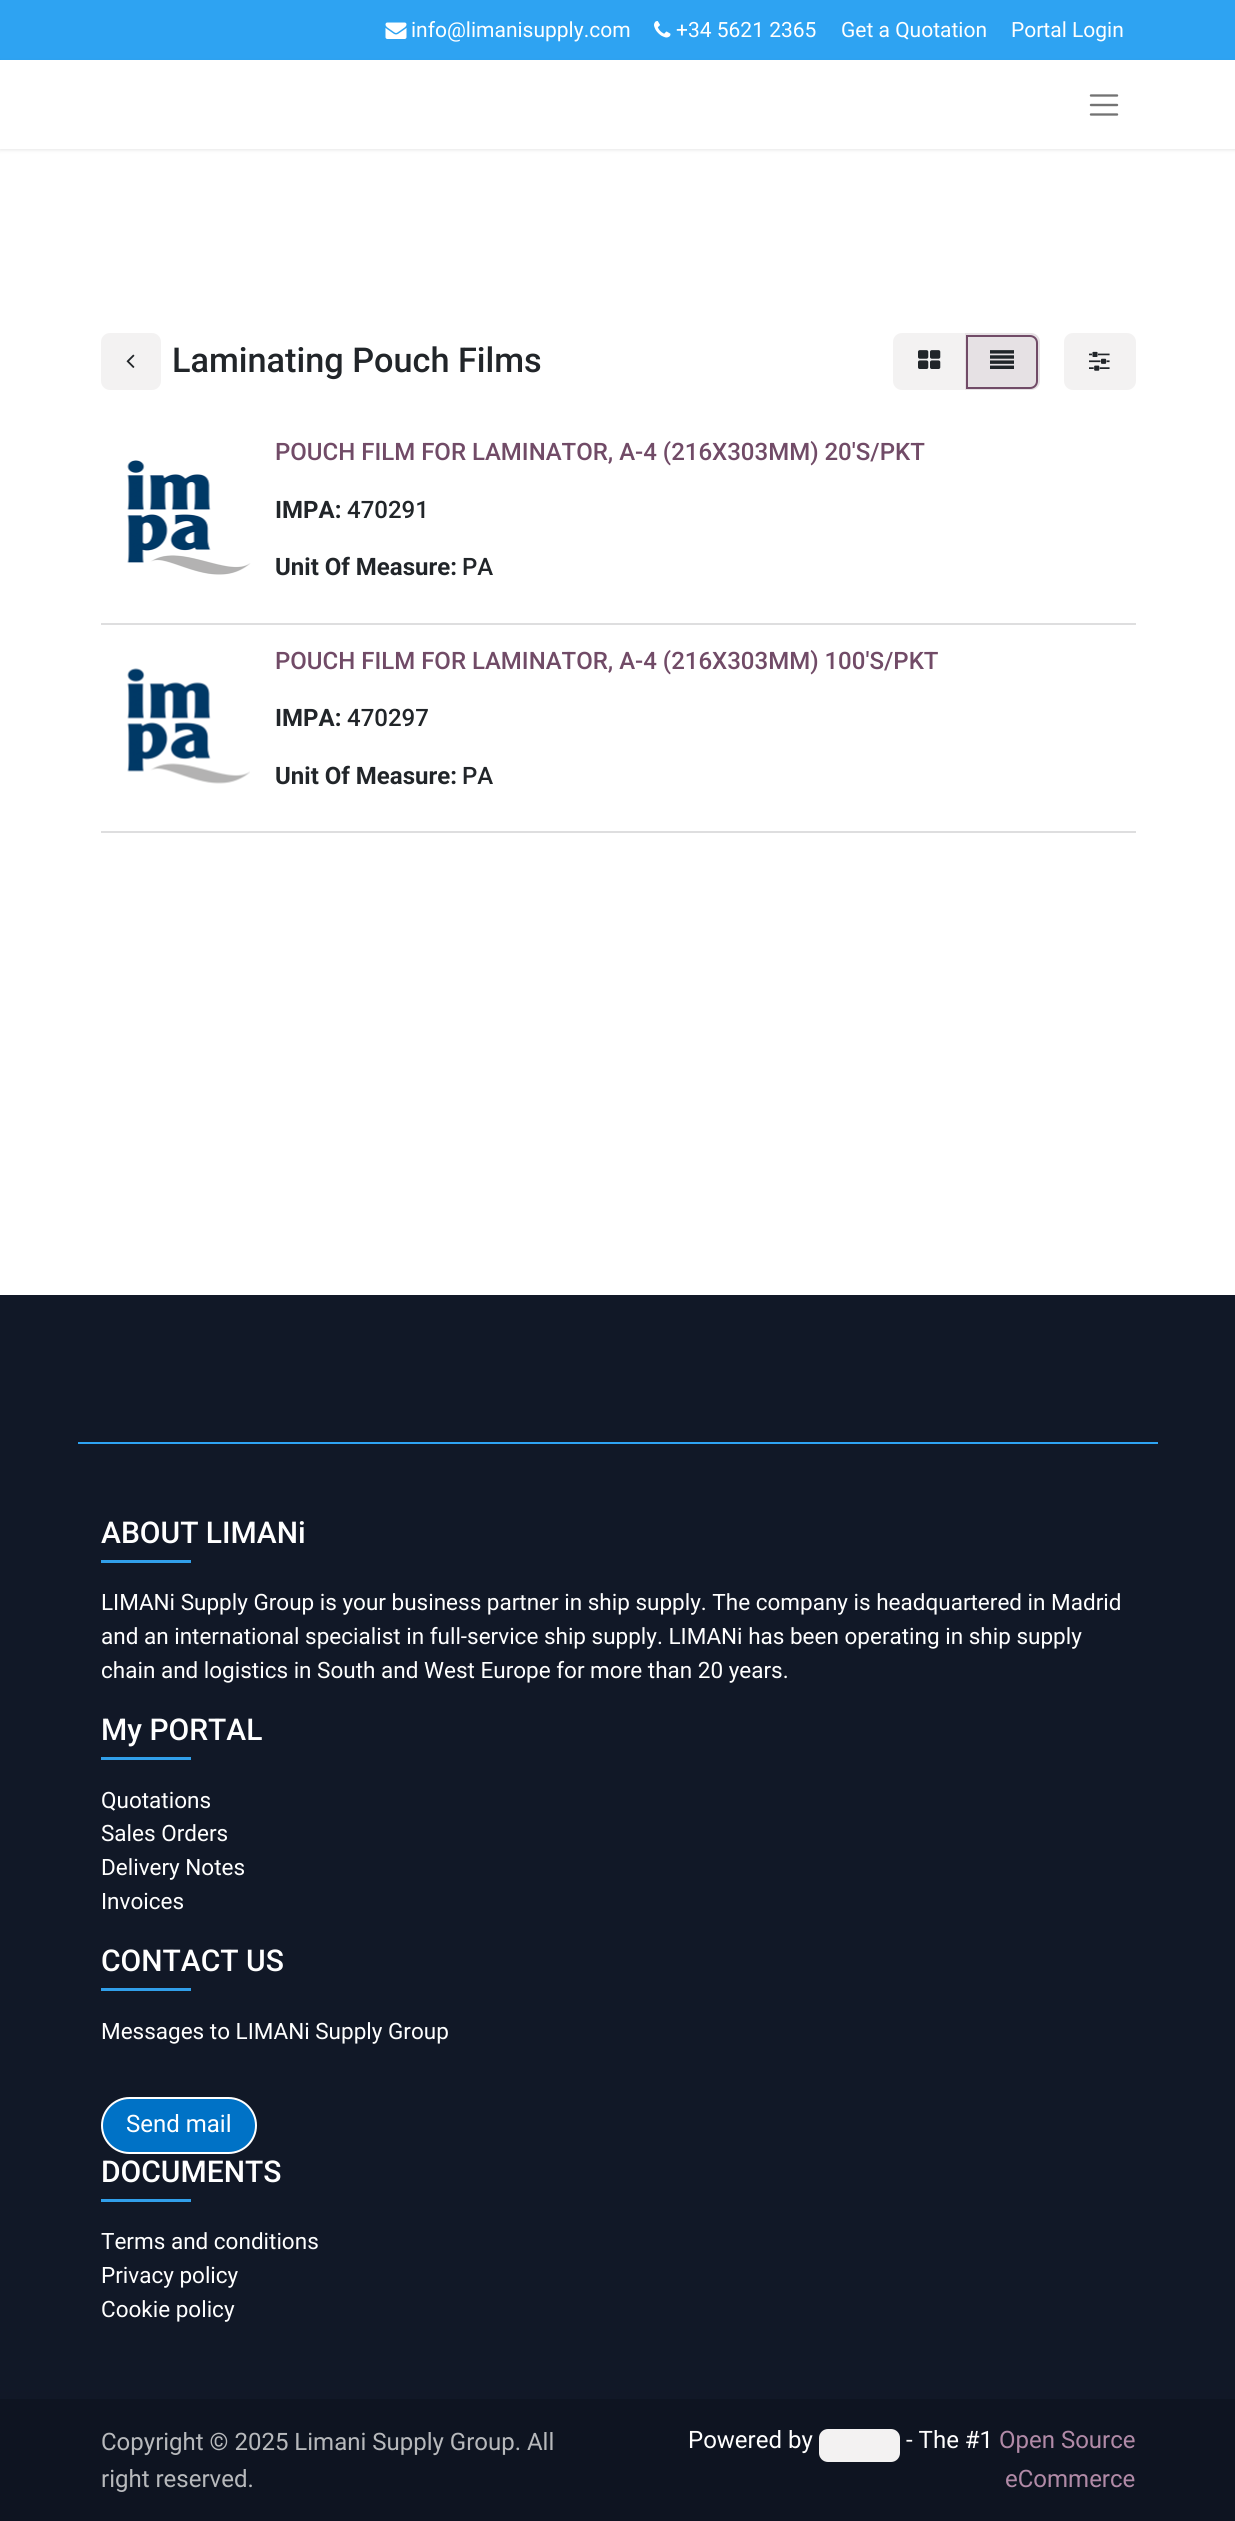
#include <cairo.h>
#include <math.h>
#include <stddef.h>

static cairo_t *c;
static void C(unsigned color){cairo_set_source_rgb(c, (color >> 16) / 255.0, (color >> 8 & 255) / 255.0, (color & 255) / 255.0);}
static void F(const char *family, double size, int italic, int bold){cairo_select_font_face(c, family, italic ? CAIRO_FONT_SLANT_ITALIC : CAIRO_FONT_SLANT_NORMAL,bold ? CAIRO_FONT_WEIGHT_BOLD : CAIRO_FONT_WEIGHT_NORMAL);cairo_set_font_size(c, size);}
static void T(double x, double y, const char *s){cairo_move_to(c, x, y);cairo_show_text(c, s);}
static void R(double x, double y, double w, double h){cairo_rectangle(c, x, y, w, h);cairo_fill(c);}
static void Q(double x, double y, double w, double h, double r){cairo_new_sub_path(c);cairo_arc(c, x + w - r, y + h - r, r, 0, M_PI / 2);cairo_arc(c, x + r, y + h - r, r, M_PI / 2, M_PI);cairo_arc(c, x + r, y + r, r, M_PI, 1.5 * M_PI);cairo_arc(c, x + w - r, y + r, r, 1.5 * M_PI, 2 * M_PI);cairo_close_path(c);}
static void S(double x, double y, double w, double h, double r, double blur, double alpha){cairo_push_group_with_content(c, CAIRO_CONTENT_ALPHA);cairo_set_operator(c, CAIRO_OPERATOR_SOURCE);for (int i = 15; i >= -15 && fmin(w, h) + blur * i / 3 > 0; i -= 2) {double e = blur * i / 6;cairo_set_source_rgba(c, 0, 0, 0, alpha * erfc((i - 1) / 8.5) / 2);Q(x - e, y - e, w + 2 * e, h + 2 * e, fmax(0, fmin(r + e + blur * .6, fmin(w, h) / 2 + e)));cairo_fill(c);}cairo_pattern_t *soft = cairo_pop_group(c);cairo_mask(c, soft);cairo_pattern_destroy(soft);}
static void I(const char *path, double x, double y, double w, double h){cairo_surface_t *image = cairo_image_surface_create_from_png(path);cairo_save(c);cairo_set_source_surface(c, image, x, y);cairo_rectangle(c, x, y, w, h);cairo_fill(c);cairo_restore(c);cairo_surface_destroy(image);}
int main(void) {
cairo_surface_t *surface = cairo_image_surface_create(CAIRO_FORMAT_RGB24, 1235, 2521);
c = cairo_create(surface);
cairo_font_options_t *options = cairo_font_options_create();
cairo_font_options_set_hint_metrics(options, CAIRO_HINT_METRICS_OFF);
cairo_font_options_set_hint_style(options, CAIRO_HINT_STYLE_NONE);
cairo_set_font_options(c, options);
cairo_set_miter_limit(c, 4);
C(0xffffff);
cairo_paint(c);
C(0x2ea3f2);
R(0,0,1235,60);
I("1.png",385,22,22,17);
F("Roboto",21,0,0);
C(0xffffff);
T(411,37,"info@limanisupply.com");
I("2.png",654,21,17,17);
T(676,37,"+34 5621 2365");
T(841,37,"Get a Quotation");
T(1011,37,"Portal Login");
C(0x000000);
S(0,62,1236,88,0,2,.1);
C(0xffffff);
R(0,60,1235,89);
cairo_new_path(c);
cairo_move_to(c,1091,95.5);
cairo_line_to(c,1117,95.5);
cairo_move_to(c,1091,105);
cairo_line_to(c,1117,105);
cairo_move_to(c,1091,114.5);
cairo_line_to(c,1117,114.5);
C(0x737373);
cairo_set_line_width(c,2.4);
cairo_set_line_cap(c,CAIRO_LINE_CAP_ROUND);
cairo_stroke(c);
C(0xf3f2f2);
Q(102,334,58,55,8);
cairo_fill_preserve(c);
cairo_set_line_width(c,2);
cairo_set_line_cap(c,CAIRO_LINE_CAP_BUTT);
cairo_stroke(c);
I("3.png",126,354,9,14);
F("Roboto Medium",34.25,0,0);
C(0x212529);
T(172,372,"Laminating Pouch Films");
C(0xf3f2f2);
cairo_new_path(c);
cairo_move_to(c,902,334);
cairo_line_to(c,965,334);
cairo_line_to(c,965,389);
cairo_line_to(c,902,389);
cairo_curve_to(c,897.5,389,894,385.5,894,381);
cairo_line_to(c,894,342);
cairo_curve_to(c,894,337.5,897.5,334,902,334);
cairo_close_path(c);
cairo_fill_preserve(c);
cairo_stroke(c);
I("4.png",918,350,23,19);
C(0xe6e1e4);
cairo_new_path(c);
cairo_move_to(c,965,333);
cairo_line_to(c,1031,333);
cairo_curve_to(c,1036,333,1040,337,1040,342);
cairo_line_to(c,1040,381);
cairo_curve_to(c,1040,386,1036,390,1031,390);
cairo_line_to(c,965,390);
cairo_close_path(c);
cairo_fill(c);
cairo_new_path(c);
cairo_move_to(c,967,336);
cairo_line_to(c,1030,336);
cairo_curve_to(c,1034,336,1037,339,1037,343);
cairo_line_to(c,1037,381);
cairo_curve_to(c,1037,385,1034,388,1030,388);
cairo_line_to(c,967,388);
cairo_close_path(c);
C(0x714b67);
cairo_stroke(c);
I("5.png",990,350,24,19);
C(0xf3f2f2);
Q(1065,334,70,55,8);
cairo_fill_preserve(c);
cairo_stroke(c);
I("6.png",1089,351,21,20);
C(0xdededf);
R(101,623,1035,2);
I("7.png",127,460,124,115);
F("Roboto Medium",24,0,0);
C(0x714b67);
T(275,460,"POUCH FILM FOR LAMINATOR, A-4 (216X303MM) 20'S/PKT");
F("Roboto",24,0,1);
C(0x212529);
T(275,518,"IMPA:");
F("Roboto Medium",24,0,0);
T(347,518,"470291");
F("Roboto",24,0,1);
T(275,575,"Unit Of Measure:");
F("Roboto Medium",24,0,0);
T(462,575,"PA");
C(0xdededf);
R(101,831,1035,2);
I("8.png",127,668,123,116);
C(0x714b67);
T(275,669,"POUCH FILM FOR LAMINATOR, A-4 (216X303MM) 100'S/PKT");
F("Roboto",24,0,1);
C(0x212529);
T(275,726,"IMPA:");
F("Roboto Medium",24,0,0);
T(347,726,"470297");
F("Roboto",24,0,1);
T(275,784,"Unit Of Measure:");
F("Roboto Medium",24,0,0);
T(462,784,"PA");
C(0x111827);
R(0,1295,1235,1104);
C(0x2ea3f2);
R(78,1442,1080,2);
F("Roboto Medium",30,0,0);
C(0xffffff);
T(101,1543,"ABOUT LIMANi");
C(0x319fea);
R(101,1560,90,3);
F("Roboto",22.5,0,0);
C(0xffffff);
T(101,1610,"LIMANi Supply Group is your business partner in ship supply. The company is headquartered in Madrid");
T(101,1644,"and an international specialist in full-service ship supply. LIMANi has been operating in ship supply");
T(101,1678,"chain and logistics in South and West Europe for more than 20 years.");
F("Roboto Medium",30,0,0);
T(101,1740,"My PORTAL");
C(0x319fea);
R(101,1757,90,3);
F("Roboto",22.5,0,0);
C(0xffffff);
T(101,1808,"Quotations");
T(101,1841,"Sales Orders");
T(101,1875,"Delivery Notes");
T(101,1909,"Invoices");
F("Roboto Medium",30,0,0);
T(101,1971,"CONTACT US");
C(0x319fea);
R(101,1988,90,3);
F("Roboto",22.5,0,0);
C(0xffffff);
T(101,2039,"Messages to LIMANi Supply Group");
C(0x0072c6);
Q(102,2098,154,55,27.5);
cairo_fill_preserve(c);
C(0xffffff);
cairo_stroke(c);
F("Roboto",24,0,0);
T(126,2132,"Send mail");
F("Roboto Medium",30,0,0);
T(101,2182,"DOCUMENTS");
C(0x319fea);
R(101,2199,90,3);
F("Roboto",22.5,0,0);
C(0xffffff);
T(101,2249,"Terms and conditions");
T(101,2283,"Privacy policy");
T(101,2317,"Cookie policy");
C(0x0e1421);
R(0,2399,1235,122);
F("Roboto",24,0,0);
C(0xb7b9bc);
T(101,2450,"Copyright © 2025 Limani Supply Group. All");
T(101,2487,"right reserved.");
C(0xffffff);
T(688,2448,"Powered by");
C(0xf3f2f2);
Q(819,2429,81,33,9);
cairo_fill(c);
C(0xffffff);
T(906,2448,"- The #1");
C(0xb18aa7);
T(999,2448,"Open Source");
T(1005,2487,"eCommerce");
cairo_surface_write_to_png(surface, "o.png");
cairo_font_options_destroy(options);
cairo_destroy(c);
cairo_surface_destroy(surface);
return 0;
}
